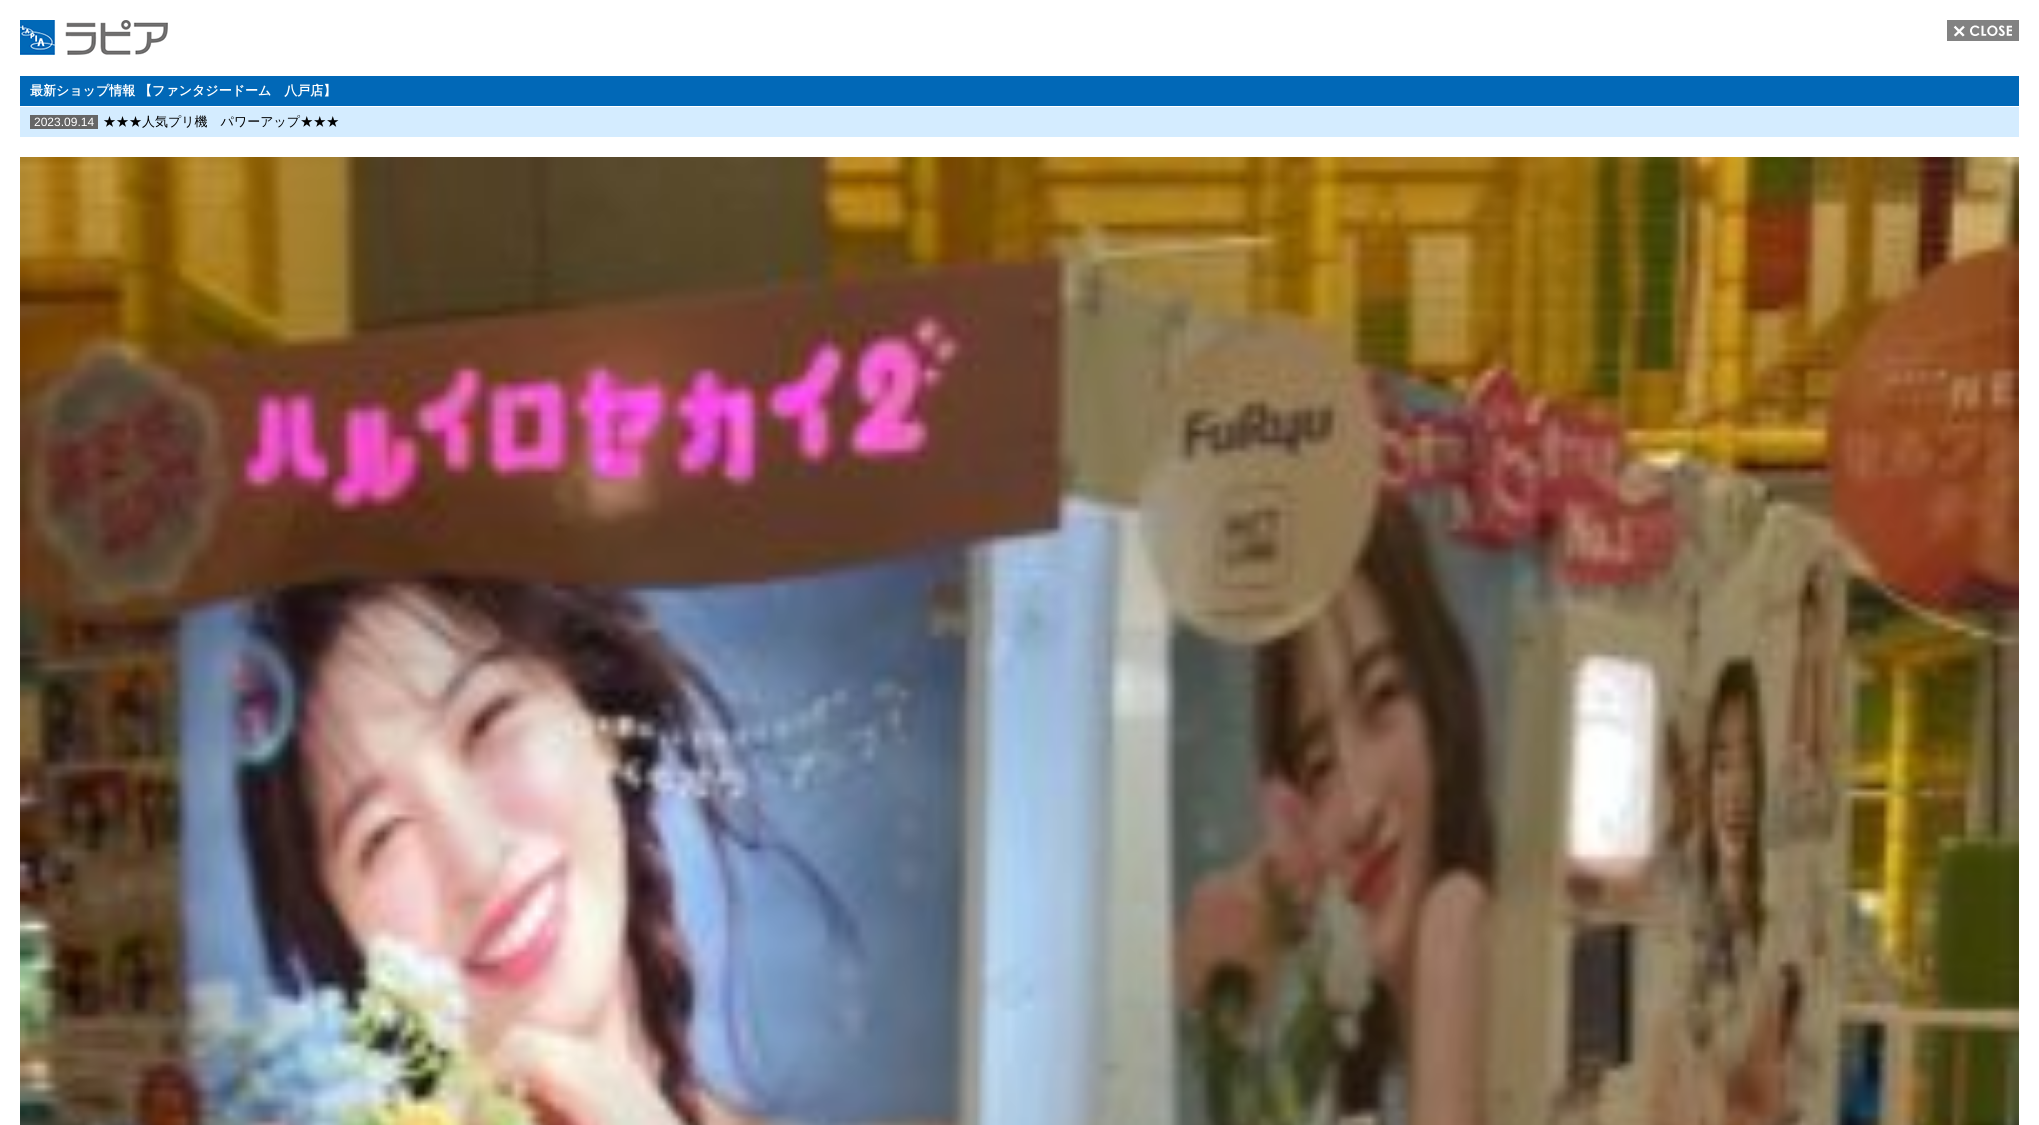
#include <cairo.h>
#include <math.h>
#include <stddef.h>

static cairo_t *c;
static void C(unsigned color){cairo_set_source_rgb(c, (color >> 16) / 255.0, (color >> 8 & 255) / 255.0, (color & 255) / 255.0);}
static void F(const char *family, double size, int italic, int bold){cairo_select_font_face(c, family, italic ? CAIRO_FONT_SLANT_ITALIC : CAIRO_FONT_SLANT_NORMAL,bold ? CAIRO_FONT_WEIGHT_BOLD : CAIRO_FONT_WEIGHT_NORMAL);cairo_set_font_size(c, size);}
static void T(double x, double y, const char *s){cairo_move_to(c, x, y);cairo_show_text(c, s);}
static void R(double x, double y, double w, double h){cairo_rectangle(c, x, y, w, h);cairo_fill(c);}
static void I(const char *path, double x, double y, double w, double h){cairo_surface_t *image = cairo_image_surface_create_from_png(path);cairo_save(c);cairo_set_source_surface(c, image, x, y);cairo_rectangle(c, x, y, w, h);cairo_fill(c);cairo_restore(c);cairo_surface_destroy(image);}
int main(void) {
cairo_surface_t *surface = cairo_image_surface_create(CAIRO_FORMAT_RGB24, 2039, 1125);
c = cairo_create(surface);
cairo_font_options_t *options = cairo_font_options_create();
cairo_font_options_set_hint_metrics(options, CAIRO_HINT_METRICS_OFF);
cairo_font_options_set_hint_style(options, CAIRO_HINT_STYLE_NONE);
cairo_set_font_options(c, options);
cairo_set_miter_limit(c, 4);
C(0xffffff);
cairo_paint(c);
I("1.png",20,20,148,35);
I("2.png",1947,20,72,21);
C(0x0168b7);
R(20,76,1999,30);
F("WenQuanYi Zen Hei",13,0,1);
C(0xffffff);
T(30,95,"最新ショップ情報 【ファンタジードーム　八戸店】");
C(0xd4ecff);
R(20,107,1999,30);
C(0x666666);
R(30,115,68,14);
F("Liberation Sans",12,0,0);
C(0xffffff);
T(34,126,"2023.09.14");
F("WenQuanYi Zen Hei Medium",13,0,0);
C(0x000000);
T(103,126,"★★★人気プリ機　パワーアップ★★★");
I("3.png",20,157,1999,968);
cairo_surface_write_to_png(surface, "o.png");
cairo_font_options_destroy(options);
cairo_destroy(c);
cairo_surface_destroy(surface);
return 0;
}
